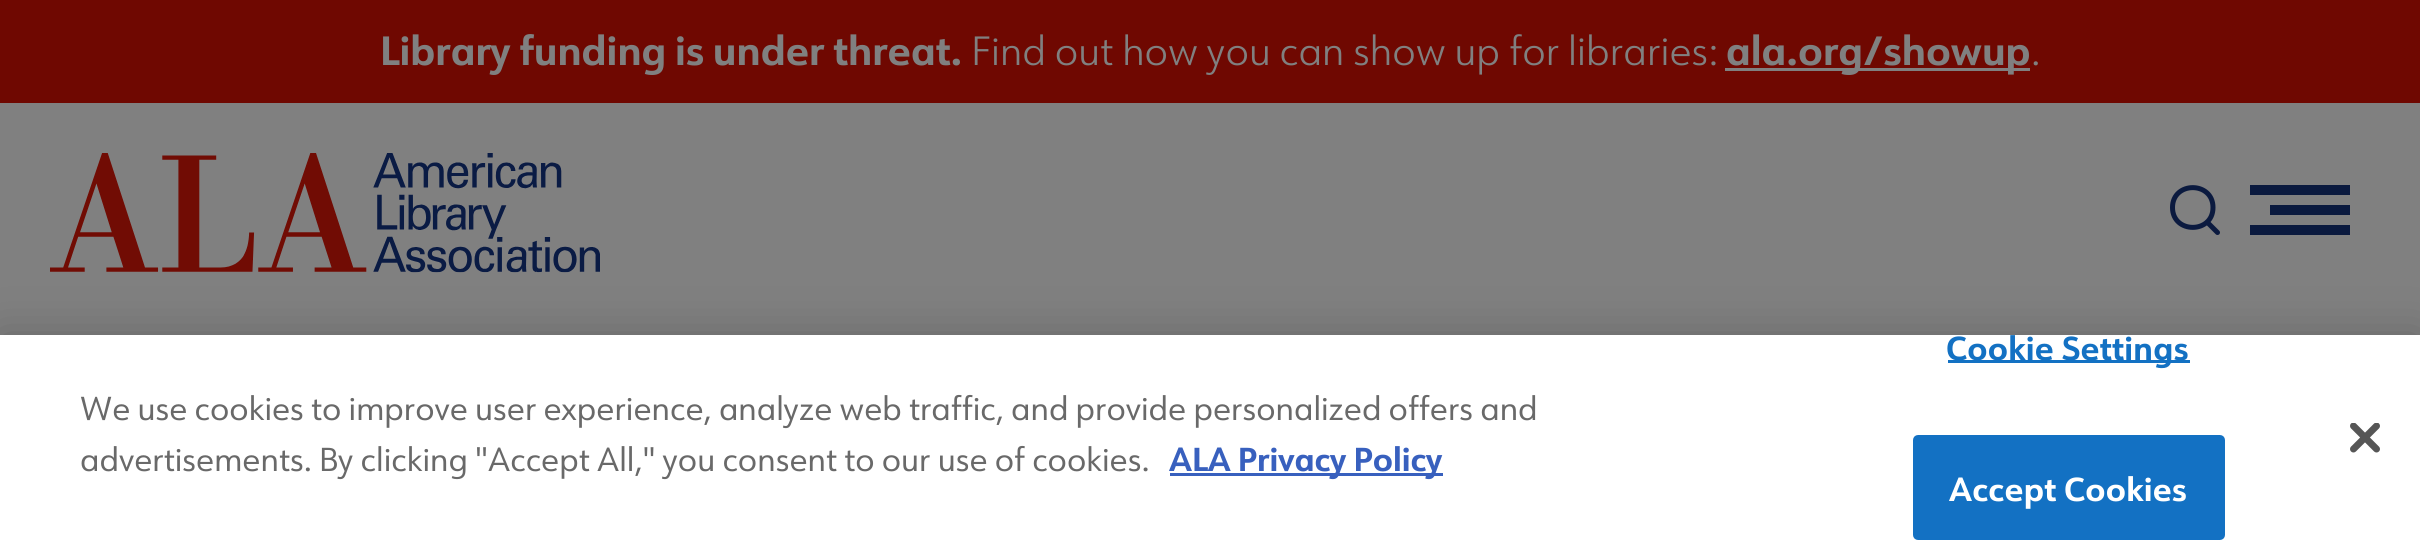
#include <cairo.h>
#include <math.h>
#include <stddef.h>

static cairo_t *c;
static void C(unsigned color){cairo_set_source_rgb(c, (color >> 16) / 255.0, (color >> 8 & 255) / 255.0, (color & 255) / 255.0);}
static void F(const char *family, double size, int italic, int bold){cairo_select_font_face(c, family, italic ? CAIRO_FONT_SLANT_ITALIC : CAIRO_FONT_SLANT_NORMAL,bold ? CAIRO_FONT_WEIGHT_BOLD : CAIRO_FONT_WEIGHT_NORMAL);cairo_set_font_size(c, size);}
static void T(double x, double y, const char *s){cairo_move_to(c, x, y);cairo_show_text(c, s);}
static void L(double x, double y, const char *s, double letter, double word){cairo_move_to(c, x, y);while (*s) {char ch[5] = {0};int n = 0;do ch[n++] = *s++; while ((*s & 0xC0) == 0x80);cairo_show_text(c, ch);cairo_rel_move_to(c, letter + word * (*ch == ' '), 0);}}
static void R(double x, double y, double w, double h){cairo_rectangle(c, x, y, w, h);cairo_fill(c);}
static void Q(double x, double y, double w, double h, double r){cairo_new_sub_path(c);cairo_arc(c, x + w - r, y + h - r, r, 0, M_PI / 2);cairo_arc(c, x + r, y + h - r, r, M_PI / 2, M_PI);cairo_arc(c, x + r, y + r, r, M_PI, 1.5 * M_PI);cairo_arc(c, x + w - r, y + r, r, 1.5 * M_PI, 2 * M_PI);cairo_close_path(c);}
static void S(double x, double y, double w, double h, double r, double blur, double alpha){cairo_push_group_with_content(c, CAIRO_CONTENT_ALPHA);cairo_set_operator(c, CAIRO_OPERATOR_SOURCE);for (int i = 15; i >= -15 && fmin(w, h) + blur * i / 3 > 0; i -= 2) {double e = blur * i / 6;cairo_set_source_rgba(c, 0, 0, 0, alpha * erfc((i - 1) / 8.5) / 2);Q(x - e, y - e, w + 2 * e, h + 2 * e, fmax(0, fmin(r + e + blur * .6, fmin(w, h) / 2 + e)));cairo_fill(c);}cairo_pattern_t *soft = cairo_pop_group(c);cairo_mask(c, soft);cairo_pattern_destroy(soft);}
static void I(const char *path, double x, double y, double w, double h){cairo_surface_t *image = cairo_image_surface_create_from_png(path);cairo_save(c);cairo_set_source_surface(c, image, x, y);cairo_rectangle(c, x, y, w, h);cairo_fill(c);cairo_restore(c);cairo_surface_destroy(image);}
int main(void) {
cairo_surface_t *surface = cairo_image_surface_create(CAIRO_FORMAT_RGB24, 2420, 542);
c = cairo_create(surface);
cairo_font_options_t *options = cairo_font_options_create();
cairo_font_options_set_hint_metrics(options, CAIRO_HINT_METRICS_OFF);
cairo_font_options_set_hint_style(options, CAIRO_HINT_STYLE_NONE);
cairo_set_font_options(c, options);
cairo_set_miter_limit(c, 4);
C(0x808080);
cairo_paint(c);
C(0x6f0801);
R(0,0,2420,103);
F("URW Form",40,0,1);
C(0x808080);
T(380,65,"Library funding is under threat.");
F("URW Form Light",40,0,0);
T(971,65,"Find out how you can show up for libraries:");
R(1725,68,305,3);
F("URW Form",40,0,1);
T(1726,65,"ala.org/showup");
F("URW Form Light",40,0,0);
T(2031,65,".");
I("1.png",50,153,550,120);
cairo_new_path(c);
cairo_move_to(c,2217.5,232.5);
cairo_line_to(c,2207,222);
cairo_move_to(c,2213,207.5);
cairo_curve_to(c,2213,234,2172.5,234,2172.5,207.5);
cairo_curve_to(c,2172.5,181,2213,181,2213,207.5);
cairo_close_path(c);
C(0x0b1a3f);
cairo_set_line_width(c,5);
cairo_set_line_cap(c,CAIRO_LINE_CAP_ROUND);
cairo_stroke(c);
R(2250,185,100,10);
R(2270,205,80,10);
R(2250,225,100,10);
C(0x000000);
S(0,335,2420,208,0,22.5,.2);
C(0xffffff);
R(0,335,2420,207);
F("URW Form",32.5,0,0);
C(0x696969);
T(80,420,"We use cookies to improve user experience, analyze web traffic, and provide personalized offers and");
T(80,471,"advertisements. By clicking \"Accept All,\" you consent to our use of cookies.");
C(0x3860be);
R(1170,473,273,3);
F("URW Form",32.5,0,1);
T(1169,471,"ALA Privacy Policy");
C(0x1371c3);
R(1948,360,242,3);
L(1946,360,"Cookie Settings",.3,0);
Q(1914.5,436.5,309,102,3.5);
cairo_fill_preserve(c);
cairo_set_line_width(c,3);
cairo_set_line_cap(c,CAIRO_LINE_CAP_BUTT);
cairo_stroke(c);
C(0xffffff);
L(1949,501,"Accept Cookies",.3,0);
I("2.png",2350,423,30,30);
cairo_surface_write_to_png(surface, "o.png");
cairo_font_options_destroy(options);
cairo_destroy(c);
cairo_surface_destroy(surface);
return 0;
}
